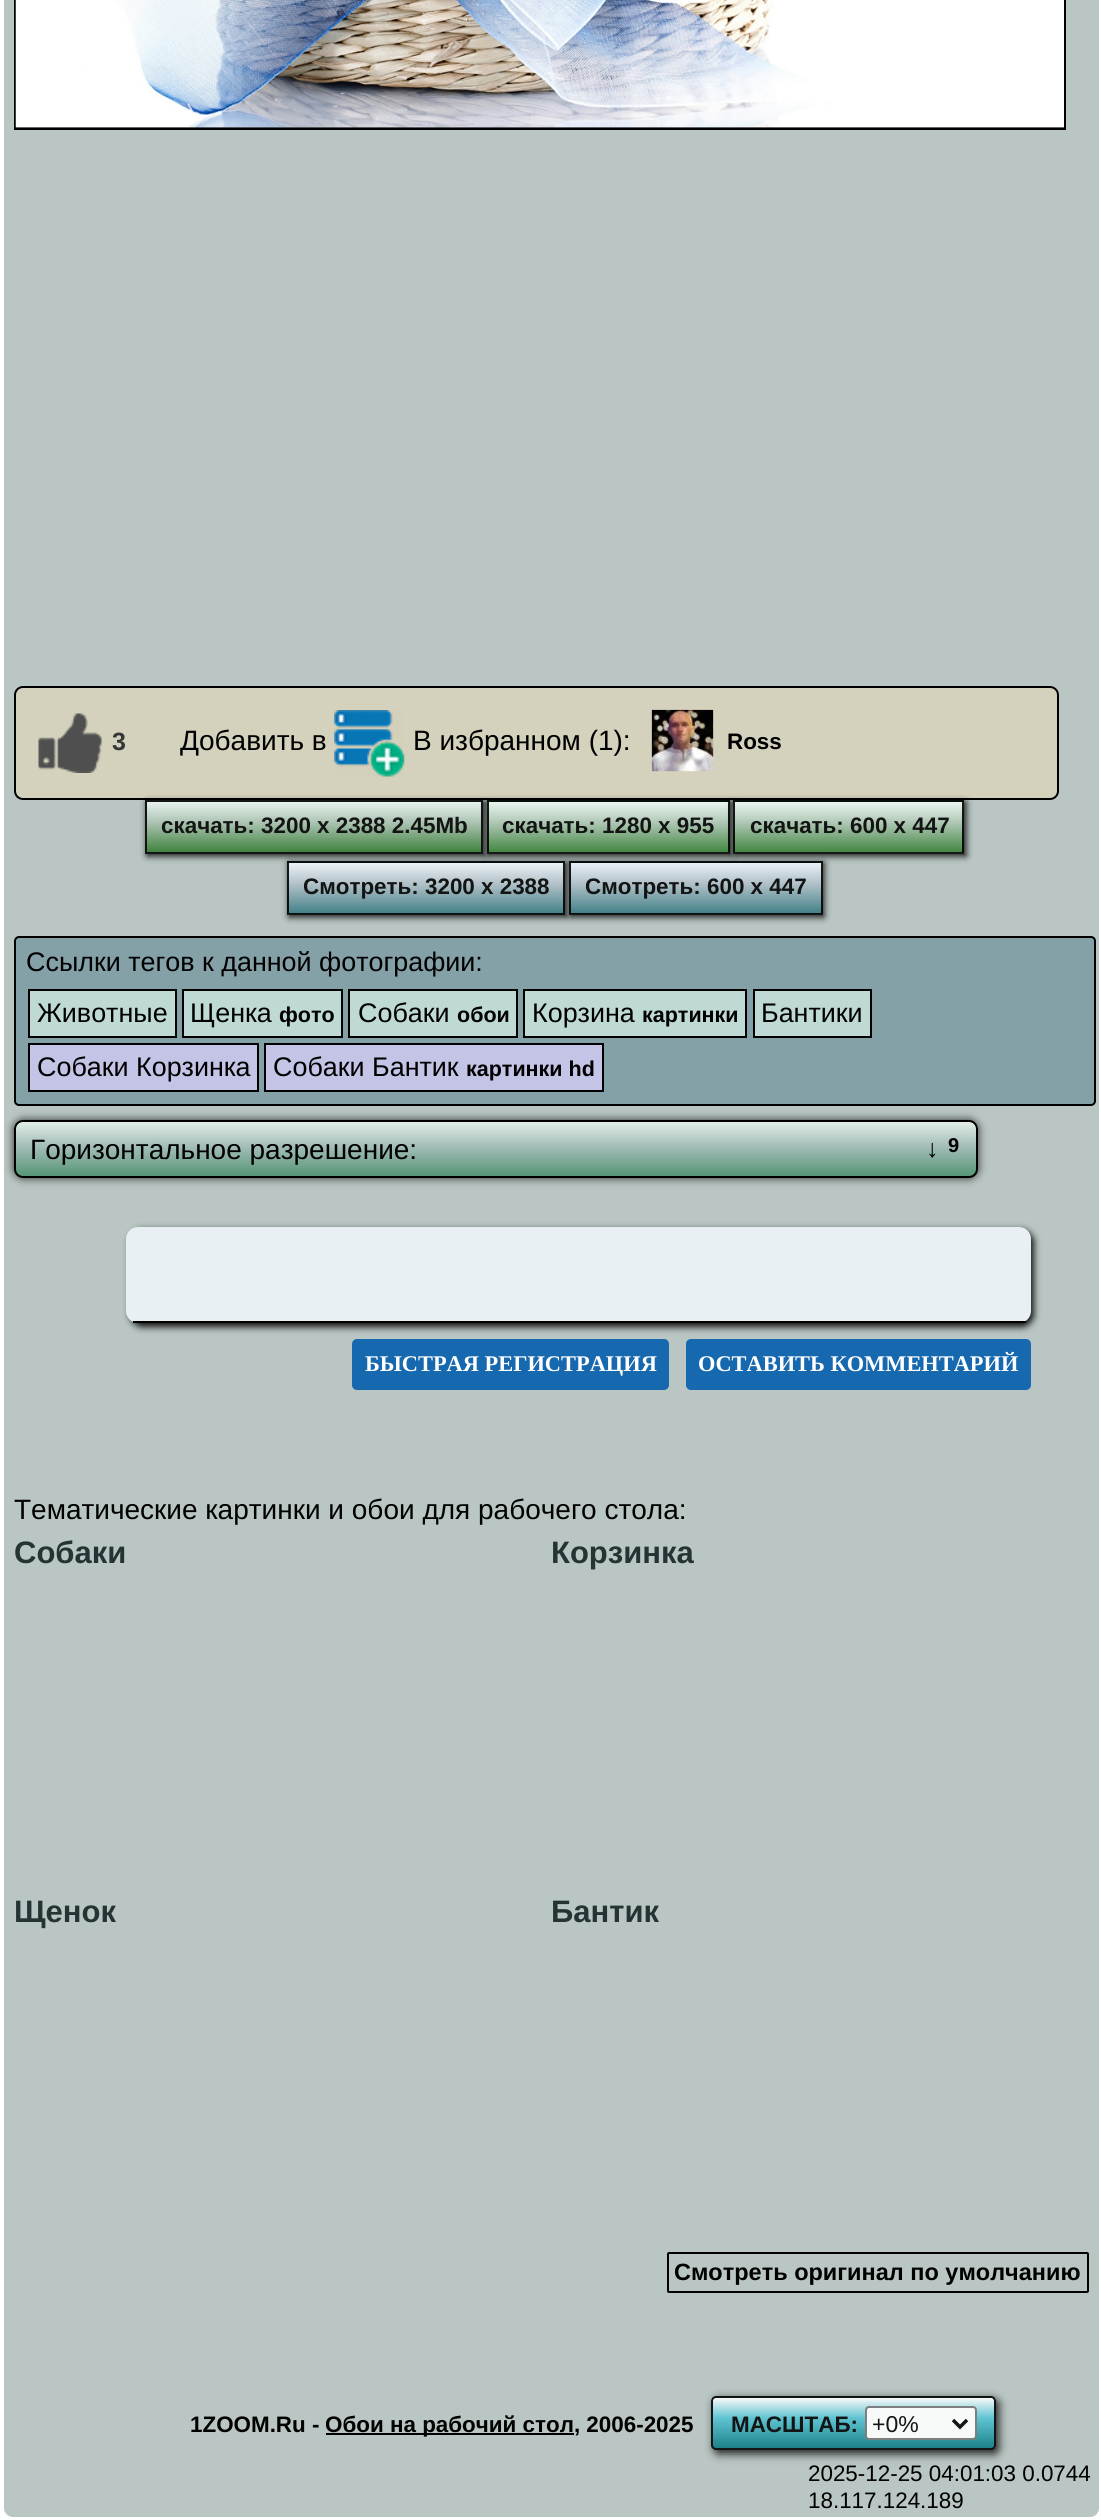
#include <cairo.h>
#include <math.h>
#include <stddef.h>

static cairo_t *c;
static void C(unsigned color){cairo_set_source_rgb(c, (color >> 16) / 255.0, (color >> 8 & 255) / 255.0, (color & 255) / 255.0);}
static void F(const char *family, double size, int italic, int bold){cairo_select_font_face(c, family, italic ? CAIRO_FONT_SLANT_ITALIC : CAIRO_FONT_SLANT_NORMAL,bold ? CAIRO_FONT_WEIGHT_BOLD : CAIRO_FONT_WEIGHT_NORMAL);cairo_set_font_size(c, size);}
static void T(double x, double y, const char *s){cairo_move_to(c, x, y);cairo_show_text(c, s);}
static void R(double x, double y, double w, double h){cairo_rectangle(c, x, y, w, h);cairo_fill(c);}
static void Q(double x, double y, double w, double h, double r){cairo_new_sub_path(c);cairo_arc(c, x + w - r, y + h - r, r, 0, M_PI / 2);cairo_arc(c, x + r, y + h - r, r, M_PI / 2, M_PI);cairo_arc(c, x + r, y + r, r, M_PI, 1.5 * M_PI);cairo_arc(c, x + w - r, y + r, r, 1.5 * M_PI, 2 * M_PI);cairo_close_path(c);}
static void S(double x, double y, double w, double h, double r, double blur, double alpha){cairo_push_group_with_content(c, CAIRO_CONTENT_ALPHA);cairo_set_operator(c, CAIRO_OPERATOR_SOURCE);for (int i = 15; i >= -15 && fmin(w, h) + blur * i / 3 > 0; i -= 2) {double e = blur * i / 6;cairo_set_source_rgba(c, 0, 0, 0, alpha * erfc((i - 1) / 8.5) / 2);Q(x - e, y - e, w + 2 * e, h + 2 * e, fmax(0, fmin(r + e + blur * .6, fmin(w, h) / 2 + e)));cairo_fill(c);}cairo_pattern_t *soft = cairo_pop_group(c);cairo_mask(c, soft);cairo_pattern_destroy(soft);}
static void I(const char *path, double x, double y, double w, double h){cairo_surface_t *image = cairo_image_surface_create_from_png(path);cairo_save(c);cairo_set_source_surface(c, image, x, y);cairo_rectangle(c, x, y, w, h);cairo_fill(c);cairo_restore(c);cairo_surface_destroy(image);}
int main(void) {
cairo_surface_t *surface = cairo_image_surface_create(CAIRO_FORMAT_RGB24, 1101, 2520);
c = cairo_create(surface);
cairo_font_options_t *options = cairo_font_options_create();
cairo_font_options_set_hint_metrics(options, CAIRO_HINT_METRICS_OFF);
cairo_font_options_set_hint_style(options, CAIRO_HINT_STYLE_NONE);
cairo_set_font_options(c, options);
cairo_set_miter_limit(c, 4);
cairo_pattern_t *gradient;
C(0xffffff);
cairo_paint(c);
C(0xb9c6c3);
Q(4,-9,1095,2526,9);
cairo_fill(c);
C(0x313132);
R(16,127,1048,1);
cairo_rectangle(c,15,-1,1050,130);
C(0x000000);
cairo_stroke(c);
I("1.png",15,0,1049,128);
C(0xd4d1bc);
Q(15,687,1043,112,8);
cairo_fill_preserve(c);
C(0x000000);
cairo_stroke(c);
I("2.png",38,713,64,60);
F("Liberation Sans",25,0,1);
C(0x363636);
T(112,750,"3");
F("Liberation Sans",28,0,0);
C(0x000000);
T(180,750,"Добавить в");
I("3.png",334,710,71,67);
T(413,750,"В избранном (1):");
I("4.png",651,709,63,63);
F("Liberation Sans",22.4,0,1);
T(727,749,"Ross");
C(0x000000);
S(147,802,338,54,0,3.5,.9);
gradient = cairo_pattern_create_linear(314,852,314,802);
cairo_pattern_add_color_stop_rgba(gradient,0,0.251,0.514,0.247,1);
cairo_pattern_add_color_stop_rgba(gradient,.6,0.682,0.769,0.706,1);
cairo_pattern_add_color_stop_rgba(gradient,1,0.898,0.949,0.925,1);
cairo_set_source(c,gradient);
cairo_pattern_destroy(gradient);
R(147,802,334,50);
cairo_rectangle(c,146,801,336,52);
C(0x131414);
cairo_stroke(c);
T(161,833,"скачать: 3200 x 2388 2.45Mb");
cairo_save(c);
cairo_set_fill_rule(c,CAIRO_FILL_RULE_EVEN_ODD);
cairo_new_path(c);
cairo_move_to(c,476,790);
cairo_line_to(c,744,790);
cairo_line_to(c,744,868);
cairo_line_to(c,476,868);
cairo_close_path(c);
cairo_move_to(c,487,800);
cairo_line_to(c,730,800);
cairo_line_to(c,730,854);
cairo_line_to(c,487,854);
cairo_close_path(c);
cairo_clip(c);
C(0x000000);
S(488,802,244,54,0,3.5,.9);
cairo_restore(c);
cairo_set_source_rgba(c,0.918,0.969,0.941,0.9);
R(487,802,243,52);
gradient = cairo_pattern_create_linear(608,802,608,751);
cairo_pattern_add_color_stop_rgba(gradient,0,0.267,0.533,0.263,1);
cairo_pattern_add_color_stop_rgba(gradient,.6,0.702,0.788,0.722,1);
cairo_pattern_add_color_stop_rgba(gradient,1,0.918,0.969,0.941,1);
cairo_set_source(c,gradient);
cairo_pattern_destroy(gradient);
R(487,800,243,2);
gradient = cairo_pattern_create_linear(608,852,608,802);
cairo_pattern_add_color_stop_rgba(gradient,0,0.196,0.486,0.188,.9);
cairo_pattern_add_color_stop_rgba(gradient,.6,0.678,0.769,0.698,.9);
cairo_pattern_add_color_stop_rgba(gradient,1,0.918,0.969,0.941,.9);
cairo_set_source(c,gradient);
cairo_pattern_destroy(gradient);
R(487,802,243,50);
gradient = cairo_pattern_create_linear(608,903,608,852);
cairo_pattern_add_color_stop_rgba(gradient,0,0.196,0.486,0.188,.9);
cairo_pattern_add_color_stop_rgba(gradient,.6,0.678,0.769,0.698,.9);
cairo_pattern_add_color_stop_rgba(gradient,1,0.918,0.969,0.941,.9);
cairo_set_source(c,gradient);
cairo_pattern_destroy(gradient);
R(487,852,243,2);
cairo_rectangle(c,488,801,241,52);
cairo_set_source_rgba(c,0,0,0,0.9);
cairo_stroke(c);
C(0x131414);
T(502,833,"скачать: 1280 x 955");
cairo_save(c);
cairo_set_fill_rule(c,CAIRO_FILL_RULE_EVEN_ODD);
cairo_new_path(c);
cairo_move_to(c,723,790);
cairo_line_to(c,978,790);
cairo_line_to(c,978,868);
cairo_line_to(c,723,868);
cairo_close_path(c);
cairo_move_to(c,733,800);
cairo_line_to(c,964,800);
cairo_line_to(c,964,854);
cairo_line_to(c,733,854);
cairo_close_path(c);
cairo_clip(c);
C(0x000000);
S(735,802,231,54,0,3.5,.9);
cairo_restore(c);
cairo_set_source_rgba(c,0.918,0.969,0.941,0.9);
R(733,800,231,54);
gradient = cairo_pattern_create_linear(849,802,849,751);
cairo_pattern_add_color_stop_rgba(gradient,0,0.196,0.486,0.188,.9);
cairo_pattern_add_color_stop_rgba(gradient,.6,0.678,0.769,0.698,.9);
cairo_pattern_add_color_stop_rgba(gradient,1,0.918,0.969,0.941,.9);
cairo_set_source(c,gradient);
cairo_pattern_destroy(gradient);
R(733,800,231,2);
gradient = cairo_pattern_create_linear(849,852,849,802);
cairo_pattern_add_color_stop_rgba(gradient,0,0.196,0.486,0.188,.9);
cairo_pattern_add_color_stop_rgba(gradient,.6,0.678,0.769,0.698,.9);
cairo_pattern_add_color_stop_rgba(gradient,1,0.918,0.969,0.941,.9);
cairo_set_source(c,gradient);
cairo_pattern_destroy(gradient);
R(733,802,231,50);
gradient = cairo_pattern_create_linear(849,903,849,852);
cairo_pattern_add_color_stop_rgba(gradient,0,0.196,0.486,0.188,.9);
cairo_pattern_add_color_stop_rgba(gradient,.6,0.678,0.769,0.698,.9);
cairo_pattern_add_color_stop_rgba(gradient,1,0.918,0.969,0.941,.9);
cairo_set_source(c,gradient);
cairo_pattern_destroy(gradient);
R(733,852,231,2);
cairo_rectangle(c,734,801,229,52);
cairo_set_source_rgba(c,0,0,0,0.9);
cairo_stroke(c);
C(0x131414);
T(750,833,"скачать: 600 x 447");
C(0x000000);
S(289,863,278,54,0,3.5,.9);
cairo_set_source_rgba(c,0.918,0.949,0.969,0.9);
R(287,914,278,1);
gradient = cairo_pattern_create_linear(426,863,426,812);
cairo_pattern_add_color_stop_rgba(gradient,0,0.259,0.502,0.533,1);
cairo_pattern_add_color_stop_rgba(gradient,.6,0.702,0.761,0.788,1);
cairo_pattern_add_color_stop_rgba(gradient,1,0.914,0.945,0.965,1);
cairo_set_source(c,gradient);
cairo_pattern_destroy(gradient);
R(287,861,278,2);
gradient = cairo_pattern_create_linear(426,914,426,863);
cairo_pattern_add_color_stop_rgba(gradient,0,0.259,0.502,0.533,1);
cairo_pattern_add_color_stop_rgba(gradient,.6,0.702,0.761,0.788,1);
cairo_pattern_add_color_stop_rgba(gradient,1,0.918,0.949,0.965,1);
cairo_set_source(c,gradient);
cairo_pattern_destroy(gradient);
R(287,863,278,51);
cairo_rectangle(c,288,862,276,52);
cairo_set_source_rgba(c,0,0,0,0.9);
cairo_stroke(c);
C(0x131414);
T(303,894,"Смотреть: 3200 x 2388");
cairo_save(c);
cairo_set_fill_rule(c,CAIRO_FILL_RULE_EVEN_ODD);
cairo_new_path(c);
cairo_move_to(c,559,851);
cairo_line_to(c,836,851);
cairo_line_to(c,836,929);
cairo_line_to(c,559,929);
cairo_close_path(c);
cairo_move_to(c,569,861);
cairo_line_to(c,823,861);
cairo_line_to(c,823,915);
cairo_line_to(c,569,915);
cairo_close_path(c);
cairo_clip(c);
C(0x000000);
S(571,863,253,54,0,3.5,.9);
cairo_restore(c);
cairo_set_source_rgba(c,0.918,0.949,0.969,0.9);
R(569,861,254,54);
gradient = cairo_pattern_create_linear(696,863,696,812);
cairo_pattern_add_color_stop_rgba(gradient,0,0.188,0.455,0.486,.9);
cairo_pattern_add_color_stop_rgba(gradient,.6,0.678,0.741,0.769,.9);
cairo_pattern_add_color_stop_rgba(gradient,1,0.918,0.949,0.969,.9);
cairo_set_source(c,gradient);
cairo_pattern_destroy(gradient);
R(569,861,254,2);
gradient = cairo_pattern_create_linear(696,914,696,863);
cairo_pattern_add_color_stop_rgba(gradient,0,0.188,0.455,0.486,.9);
cairo_pattern_add_color_stop_rgba(gradient,.6,0.678,0.741,0.769,.9);
cairo_pattern_add_color_stop_rgba(gradient,1,0.918,0.949,0.969,.9);
cairo_set_source(c,gradient);
cairo_pattern_destroy(gradient);
R(569,863,254,51);
gradient = cairo_pattern_create_linear(696,964,696,914);
cairo_pattern_add_color_stop_rgba(gradient,0,0.188,0.455,0.486,.9);
cairo_pattern_add_color_stop_rgba(gradient,.6,0.678,0.741,0.769,.9);
cairo_pattern_add_color_stop_rgba(gradient,1,0.918,0.949,0.969,.9);
cairo_set_source(c,gradient);
cairo_pattern_destroy(gradient);
R(569,914,254,1);
cairo_rectangle(c,570,862,252,52);
cairo_set_source_rgba(c,0,0,0,0.9);
cairo_stroke(c);
C(0x131414);
T(585,894,"Смотреть: 600 x 447");
C(0x85a1a8);
Q(15,937,1080,168,4);
cairo_fill_preserve(c);
C(0x000000);
cairo_stroke(c);
F("Liberation Sans",26.9,0,0);
T(26,971,"Ссылки тегов к данной фотографии:");
C(0xbfdad4);
cairo_rectangle(c,29,990,147,47);
cairo_fill_preserve(c);
C(0x000000);
cairo_stroke(c);
T(37,1022,"Животные");
C(0xbfdad4);
cairo_rectangle(c,183,990,159,47);
cairo_fill_preserve(c);
C(0x000000);
cairo_stroke(c);
T(190,1022,"Щенка");
F("Liberation Sans",21.5,0,1);
T(279,1022,"фото");
C(0xbfdad4);
cairo_rectangle(c,349,990,168,47);
cairo_fill_preserve(c);
C(0x000000);
cairo_stroke(c);
F("Liberation Sans",26.9,0,0);
T(358,1022,"Собаки");
F("Liberation Sans",21.5,0,1);
T(457,1022,"обои");
C(0xbfdad4);
cairo_rectangle(c,524,990,222,47);
cairo_fill_preserve(c);
C(0x000000);
cairo_stroke(c);
F("Liberation Sans",26.9,0,0);
T(532,1022,"Корзина");
F("Liberation Sans",21.5,0,1);
T(642,1022,"картинки");
C(0xbfdad4);
cairo_rectangle(c,754,990,117,47);
cairo_fill_preserve(c);
C(0x000000);
cairo_stroke(c);
F("Liberation Sans",26.9,0,0);
T(761,1022,"Бантики");
C(0xc3c4e6);
cairo_rectangle(c,29,1044,229,47);
cairo_fill_preserve(c);
C(0x000000);
cairo_stroke(c);
T(37,1076,"Собаки Корзинка");
C(0xc3c4e6);
cairo_rectangle(c,265,1044,338,47);
cairo_fill_preserve(c);
C(0x000000);
cairo_stroke(c);
T(273,1076,"Собаки Бантик");
F("Liberation Sans",21.5,0,1);
T(466,1076,"картинки hd");
C(0x000000);
S(14,1120,964,58,9,4.5,.8);
cairo_save(c);
Q(14,1120,964,58,9);
cairo_clip(c);
gradient = cairo_pattern_create_linear(496,1176,496,1122);
cairo_pattern_add_color_stop_rgba(gradient,0,0.341,0.588,0.463,1);
cairo_pattern_add_color_stop_rgba(gradient,.6,0.667,0.757,0.745,1);
cairo_pattern_add_color_stop_rgba(gradient,1,0.886,0.941,0.902,1);
cairo_set_source(c,gradient);
cairo_pattern_destroy(gradient);
R(14,1122,964,54);
cairo_restore(c);
Q(15,1121,962,56,8);
C(0x000000);
cairo_stroke(c);
F("Liberation Sans",28,0,0);
T(30,1159,"Горизонтальное разрешение:");
F("Liberation Sans",25,0,1);
T(926,1157,"↓");
F("Liberation Sans",20,0,1);
T(948,1152,"9");
C(0x000000);
S(130,1230,904,97,12,3.5,.9);
C(0xe9f0f4);
Q(126,1227,905,96,12);
cairo_fill(c);
C(0x000000);
R(133,1321,893,2);
C(0x1769af);
Q(352,1339,317,51,5);
cairo_fill(c);
F("Liberation Serif",22.4,0,1);
C(0xffffff);
T(365,1371,"БЫСТРАЯ РЕГИСТРАЦИЯ");
C(0x1769af);
Q(686,1339,345,51,5);
cairo_fill(c);
C(0xffffff);
T(698,1371,"ОСТАВИТЬ КОММЕНТАРИЙ");
F("Liberation Sans",28,0,0);
C(0x000000);
T(14,1519,"Тематические картинки и обои для рабочего стола:");
F("Liberation Sans",31,0,1);
C(0x253335);
T(14,1563,"Собаки");
T(551,1563,"Корзинка");
T(14,1922,"Щенок");
T(551,1922,"Бантик");
Q(668,2253,420,39,1);
C(0x000000);
cairo_stroke(c);
F("Liberation Sans",23.5,0,1);
T(674,2280,"Смотреть оригинал по умолчанию");
F("Liberation Sans",22.4,0,1);
T(190,2432,"1ZOOM.Ru -");
R(326,2433,248,2);
T(325,2432,"Обои на рабочий стол, 2006-2025");
C(0x131414);
S(714,2399,285,55,5,4.5,.9);
cairo_save(c);
Q(711,2396,285,54,5);
cairo_clip(c);
gradient = cairo_pattern_create_linear(853,2448,853,2398);
cairo_pattern_add_color_stop_rgba(gradient,0,0.114,0.514,0.537,1);
cairo_pattern_add_color_stop_rgba(gradient,.6,0.373,0.769,0.824,1);
cairo_pattern_add_color_stop_rgba(gradient,1,0.973,0.976,0.976,1);
cairo_pattern_add_color_stop_rgba(gradient,1,0.373,0.769,0.824,1);
cairo_set_source(c,gradient);
cairo_pattern_destroy(gradient);
R(711,2398,285,50);
cairo_restore(c);
Q(712,2397,283,52,4);
C(0x131414);
cairo_stroke(c);
T(731,2432,"МАСШТАБ:");
C(0xf8f9f9);
Q(866,2407,110,32,3);
cairo_fill_preserve(c);
C(0x7d7e7e);
cairo_stroke(c);
cairo_new_path(c);
cairo_move_to(c,953,2420);
cairo_line_to(c,960,2427);
cairo_line_to(c,967,2420);
C(0x131414);
cairo_set_line_width(c,3.5);
cairo_stroke(c);
F("Liberation Sans",23,0,0);
T(872,2432,"+0%");
F("Liberation Sans",22.4,0,0);
C(0x000000);
T(808,2481,"2025-12-25 04:01:03 0.0744");
T(808,2508,"18.117.124.189");
cairo_surface_write_to_png(surface, "o.png");
cairo_font_options_destroy(options);
cairo_destroy(c);
cairo_surface_destroy(surface);
return 0;
}
